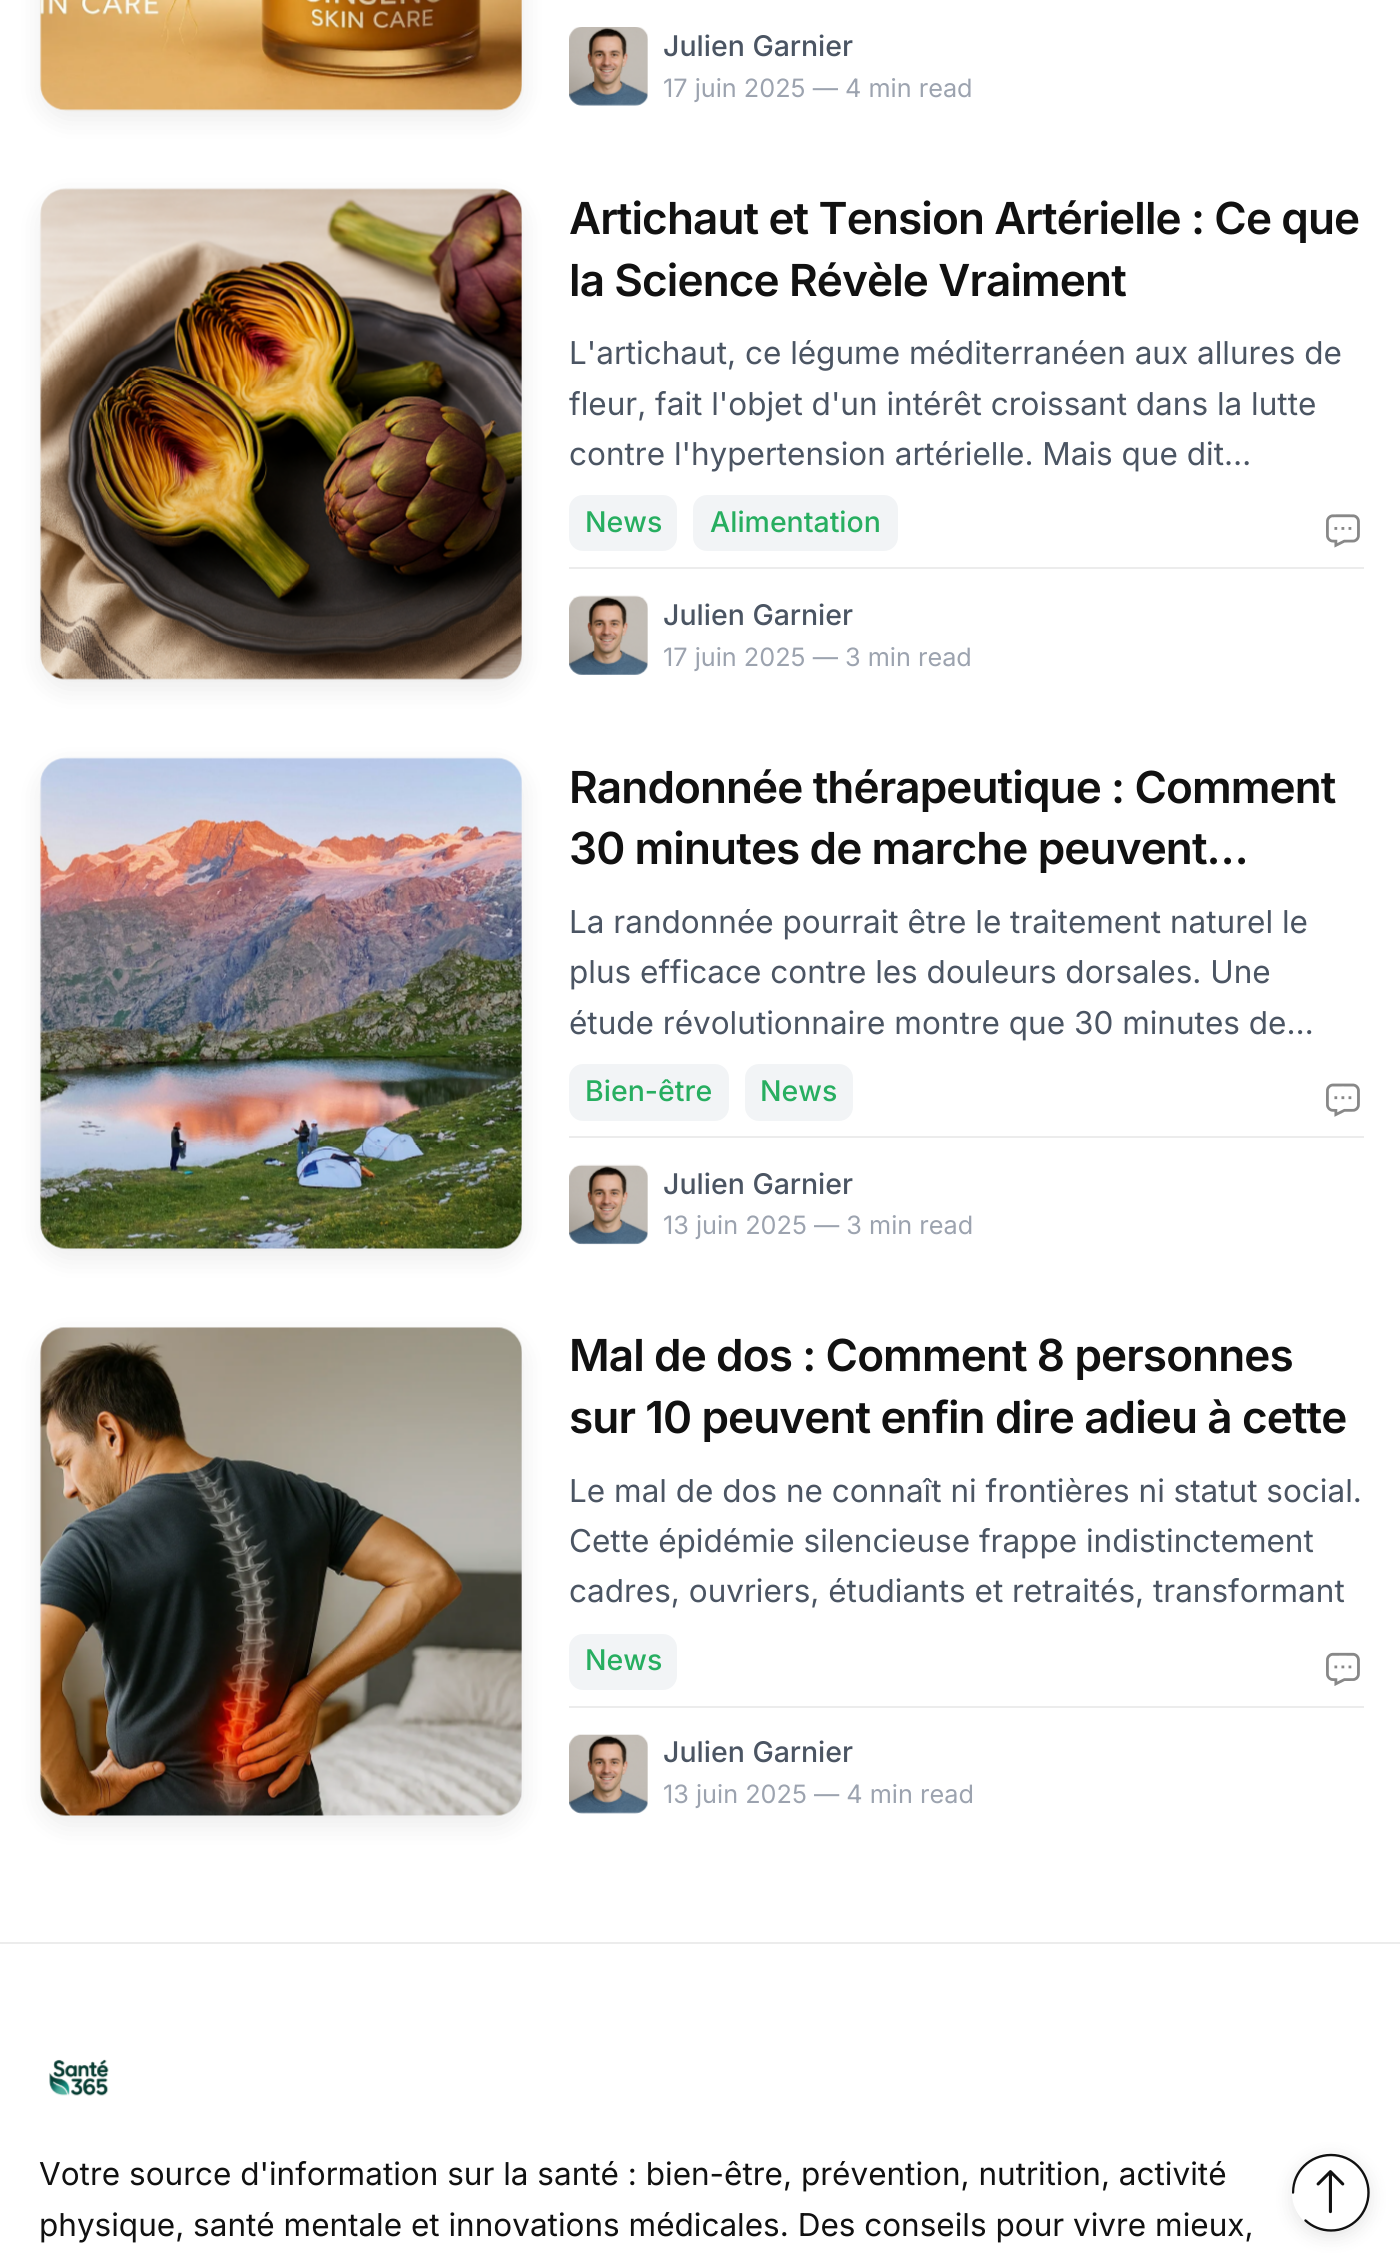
#include <cairo.h>
#include <math.h>
#include <stddef.h>

static cairo_t *c;
static void C(unsigned color){cairo_set_source_rgb(c, (color >> 16) / 255.0, (color >> 8 & 255) / 255.0, (color & 255) / 255.0);}
static void F(const char *family, double size, int italic, int bold){cairo_select_font_face(c, family, italic ? CAIRO_FONT_SLANT_ITALIC : CAIRO_FONT_SLANT_NORMAL,bold ? CAIRO_FONT_WEIGHT_BOLD : CAIRO_FONT_WEIGHT_NORMAL);cairo_set_font_size(c, size);}
static void T(double x, double y, const char *s){cairo_move_to(c, x, y);cairo_show_text(c, s);}
static void L(double x, double y, const char *s, double letter, double word){cairo_move_to(c, x, y);while (*s) {char ch[5] = {0};int n = 0;do ch[n++] = *s++; while ((*s & 0xC0) == 0x80);cairo_show_text(c, ch);cairo_rel_move_to(c, letter + word * (*ch == ' '), 0);}}
static void R(double x, double y, double w, double h){cairo_rectangle(c, x, y, w, h);cairo_fill(c);}
static void Q(double x, double y, double w, double h, double r){cairo_new_sub_path(c);cairo_arc(c, x + w - r, y + h - r, r, 0, M_PI / 2);cairo_arc(c, x + r, y + h - r, r, M_PI / 2, M_PI);cairo_arc(c, x + r, y + r, r, M_PI, 1.5 * M_PI);cairo_arc(c, x + w - r, y + r, r, 1.5 * M_PI, 2 * M_PI);cairo_close_path(c);}
static void S(double x, double y, double w, double h, double r, double blur, double alpha){cairo_push_group_with_content(c, CAIRO_CONTENT_ALPHA);cairo_set_operator(c, CAIRO_OPERATOR_SOURCE);for (int i = 15; i >= -15 && fmin(w, h) + blur * i / 3 > 0; i -= 2) {double e = blur * i / 6;cairo_set_source_rgba(c, 0, 0, 0, alpha * erfc((i - 1) / 8.5) / 2);Q(x - e, y - e, w + 2 * e, h + 2 * e, fmax(0, fmin(r + e + blur * .6, fmin(w, h) / 2 + e)));cairo_fill(c);}cairo_pattern_t *soft = cairo_pop_group(c);cairo_mask(c, soft);cairo_pattern_destroy(soft);}
static void I(const char *path, double x, double y, double w, double h){cairo_surface_t *image = cairo_image_surface_create_from_png(path);cairo_save(c);cairo_set_source_surface(c, image, x, y);cairo_rectangle(c, x, y, w, h);cairo_fill(c);cairo_restore(c);cairo_surface_destroy(image);}
int main(void) {
cairo_surface_t *surface = cairo_image_surface_create(CAIRO_FORMAT_RGB24, 1400, 2262);
c = cairo_create(surface);
cairo_font_options_t *options = cairo_font_options_create();
cairo_font_options_set_hint_metrics(options, CAIRO_HINT_METRICS_OFF);
cairo_font_options_set_hint_style(options, CAIRO_HINT_STYLE_NONE);
cairo_set_font_options(c, options);
cairo_set_miter_limit(c, 4);
C(0xffffff);
cairo_paint(c);
C(0x000000);
S(41,-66,481,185,25,13.5,.08);
C(0xf2f4f6);
Q(41,-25,481,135,25);
cairo_fill(c);
I("1.png",40,0,482,111);
I("2.png",569,27,79,79);
F("Inter Medium",28.5,0,0);
C(0x4b5563);
T(663,56,"Julien Garnier");
F("Inter",25.25,0,0);
C(0x9ca3af);
T(663,97,"17 juin 2025 — 4 min read");
C(0x000000);
S(41,198,481,491,25,13.5,.08);
C(0xf2f4f6);
Q(41,189,481,491,25);
cairo_fill(c);
I("3.png",40,188,482,492);
F("Inter SemiBold",44.1,0,0);
C(0x111111);
L(569,234,"Artichaut et Tension Artérielle : Ce que",-.9,0);
L(569,296,"la Science Révèle Vraiment",-.9,0);
F("Inter",31.5,0,0);
C(0x4b5563);
T(569,364,"L'artichaut, ce légume méditerranéen aux allures de");
T(569,415,"fleur, fait l'objet d'un intérêt croissant dans la lutte");
T(569,465,"contre l'hypertension artérielle. Mais que dit…");
C(0xf2f4f6);
Q(569,495,108,56,14);
cairo_fill(c);
F("Inter Medium",28.5,0,0);
C(0x27ae60);
T(585,532,"News");
C(0xf2f4f6);
Q(693,495,205,56,14);
cairo_fill(c);
C(0x27ae60);
T(710,532,"Alimentation");
I("4.png",1326,514,34,34);
C(0xececec);
R(569,567,795,2);
I("5.png",569,595,79,80);
C(0x4b5563);
T(663,625,"Julien Garnier");
F("Inter",25.25,0,0);
C(0x9ca3af);
T(663,666,"17 juin 2025 — 3 min read");
C(0x000000);
S(41,767,481,491,25,13.5,.08);
C(0xf2f4f6);
Q(41,758,481,491,25);
cairo_fill(c);
I("6.png",40,757,482,492);
F("Inter SemiBold",44.1,0,0);
C(0x111111);
L(569,803,"Randonnée thérapeutique : Comment",-.9,0);
L(569,864,"30 minutes de marche peuvent…",-.9,0);
F("Inter",31.5,0,0);
C(0x4b5563);
T(569,933,"La randonnée pourrait être le traitement naturel le");
T(569,983,"plus efficace contre les douleurs dorsales. Une");
T(569,1034,"étude révolutionnaire montre que 30 minutes de…");
C(0xf2f4f6);
Q(569,1064,160,57,14);
cairo_fill(c);
F("Inter Medium",28.5,0,0);
C(0x27ae60);
T(585,1101,"Bien-être");
C(0xf2f4f6);
Q(745,1064,108,57,14);
cairo_fill(c);
C(0x27ae60);
T(760,1101,"News");
I("7.png",1326,1083,34,34);
C(0xececec);
R(569,1136,795,2);
I("8.png",569,1164,79,81);
C(0x4b5563);
T(663,1194,"Julien Garnier");
F("Inter",25.25,0,0);
C(0x9ca3af);
T(663,1234,"13 juin 2025 — 3 min read");
C(0x000000);
S(41,1337,481,488,25,13.5,.08);
C(0xf2f4f6);
Q(41,1328,481,488,25);
cairo_fill(c);
I("9.png",40,1327,482,489);
F("Inter SemiBold",44.1,0,0);
C(0x111111);
L(569,1371,"Mal de dos : Comment 8 personnes",-.9,0);
L(569,1433,"sur 10 peuvent enfin dire adieu à cette",-.9,0);
F("Inter",31.5,0,0);
C(0x4b5563);
T(569,1502,"Le mal de dos ne connaît ni frontières ni statut social.");
T(569,1552,"Cette épidémie silencieuse frappe indistinctement");
T(569,1602,"cadres, ouvriers, étudiants et retraités, transformant");
C(0xf2f4f6);
Q(569,1634,108,56,14);
cairo_fill(c);
F("Inter Medium",28.5,0,0);
C(0x27ae60);
T(585,1670,"News");
I("10.png",1326,1652,34,34);
C(0xececec);
R(569,1706,795,2);
I("11.png",569,1734,79,80);
C(0x4b5563);
T(663,1762,"Julien Garnier");
F("Inter",25.25,0,0);
C(0x9ca3af);
T(663,1803,"13 juin 2025 — 4 min read");
C(0xececec);
R(0,1942,1400,2);
I("12.png",49,2059,60,37);
F("Inter",31.5,0,0);
C(0x111111);
T(39,2185,"Votre source d'information sur la santé : bien-être, prévention, nutrition, activité");
T(39,2236,"physique, santé mentale et innovations médicales. Des conseils pour vivre mieux,");
C(0x000000);
S(1292,2158,78,79,39,9,.1);
C(0xffffff);
Q(1292,2153,78,79,39);
cairo_fill(c);
I("13.png",1316,2170,29,44);
cairo_save(c);
Q(1292,2153,78,79,39);
cairo_clip(c);
cairo_new_path(c);
cairo_move_to(c,1293,2192.5);
cairo_curve_to(c,1293,2171.5,1310,2155,1331,2155);
cairo_curve_to(c,1352,2155,1368.5,2171.5,1368.5,2192.5);
cairo_curve_to(c,1368.5,2213.5,1352,2230.5,1331,2230.5);
cairo_curve_to(c,1321,2230.5,1312,2226.5,1305.5,2220.5);
C(0x111111);
cairo_set_line_width(c,2.4);
cairo_set_line_cap(c,CAIRO_LINE_CAP_ROUND);
cairo_stroke(c);
cairo_restore(c);
cairo_surface_write_to_png(surface, "o.png");
cairo_font_options_destroy(options);
cairo_destroy(c);
cairo_surface_destroy(surface);
return 0;
}
